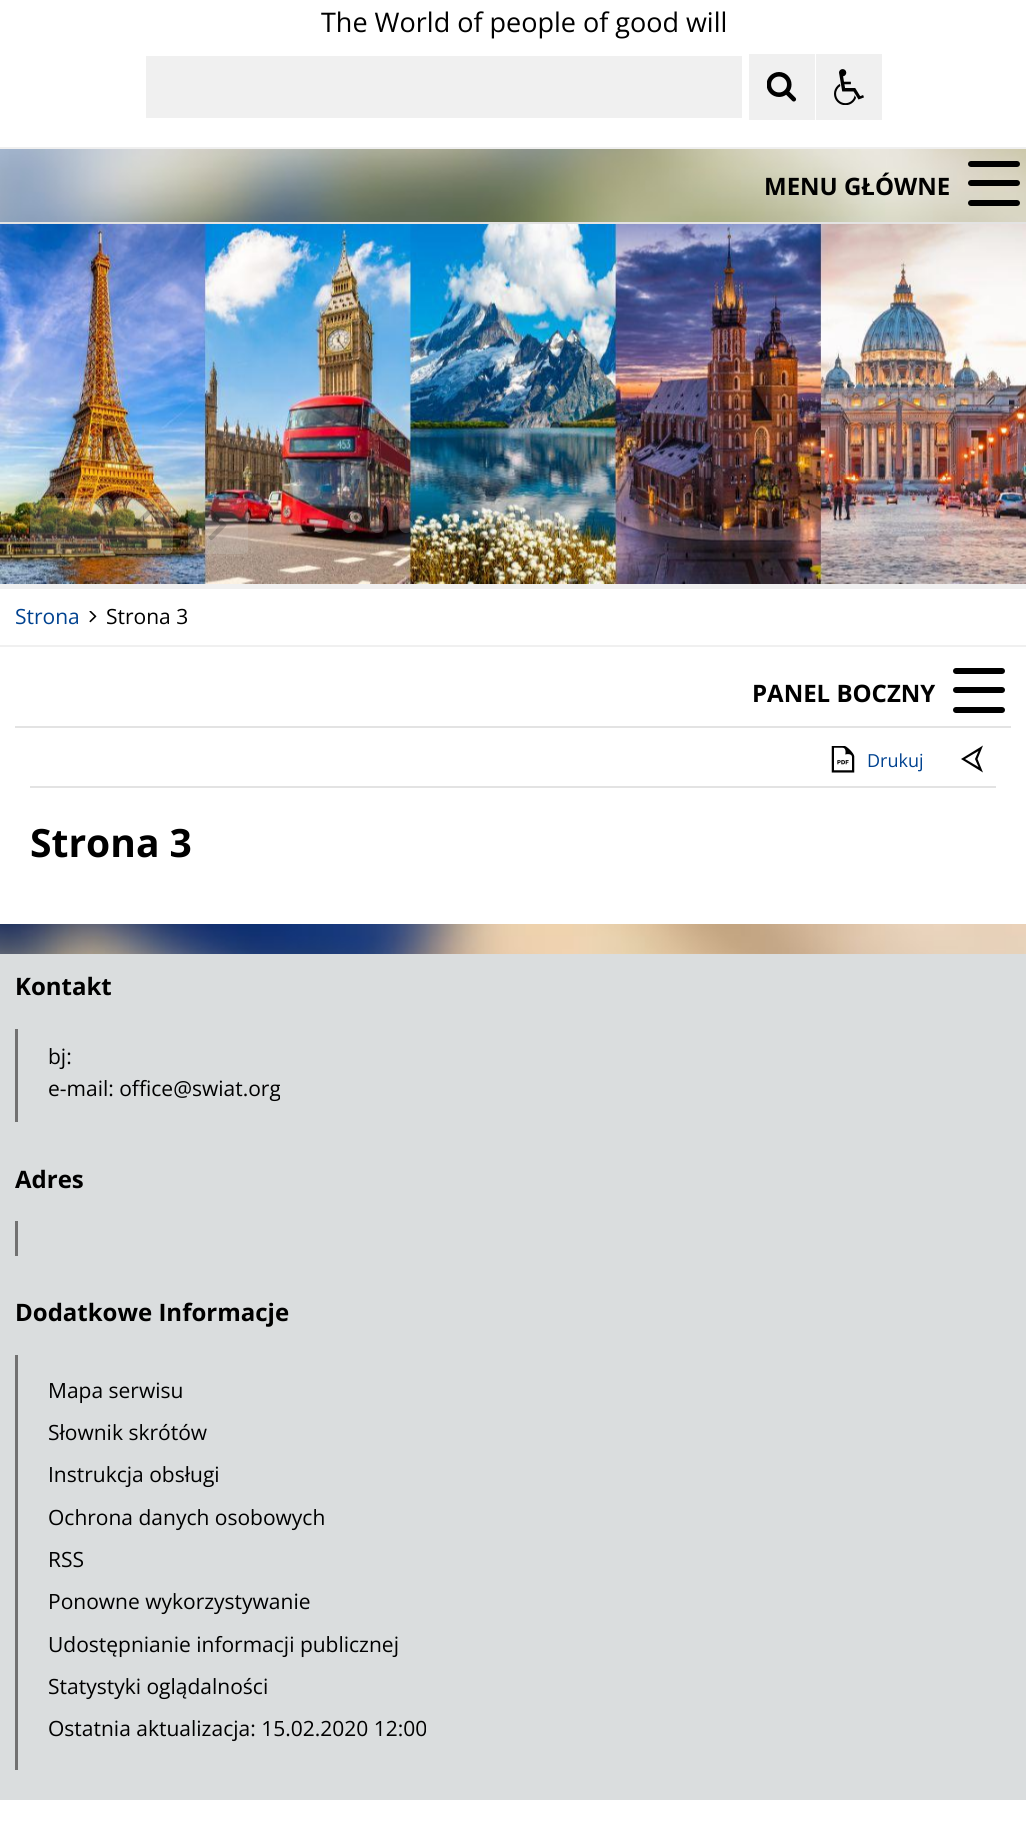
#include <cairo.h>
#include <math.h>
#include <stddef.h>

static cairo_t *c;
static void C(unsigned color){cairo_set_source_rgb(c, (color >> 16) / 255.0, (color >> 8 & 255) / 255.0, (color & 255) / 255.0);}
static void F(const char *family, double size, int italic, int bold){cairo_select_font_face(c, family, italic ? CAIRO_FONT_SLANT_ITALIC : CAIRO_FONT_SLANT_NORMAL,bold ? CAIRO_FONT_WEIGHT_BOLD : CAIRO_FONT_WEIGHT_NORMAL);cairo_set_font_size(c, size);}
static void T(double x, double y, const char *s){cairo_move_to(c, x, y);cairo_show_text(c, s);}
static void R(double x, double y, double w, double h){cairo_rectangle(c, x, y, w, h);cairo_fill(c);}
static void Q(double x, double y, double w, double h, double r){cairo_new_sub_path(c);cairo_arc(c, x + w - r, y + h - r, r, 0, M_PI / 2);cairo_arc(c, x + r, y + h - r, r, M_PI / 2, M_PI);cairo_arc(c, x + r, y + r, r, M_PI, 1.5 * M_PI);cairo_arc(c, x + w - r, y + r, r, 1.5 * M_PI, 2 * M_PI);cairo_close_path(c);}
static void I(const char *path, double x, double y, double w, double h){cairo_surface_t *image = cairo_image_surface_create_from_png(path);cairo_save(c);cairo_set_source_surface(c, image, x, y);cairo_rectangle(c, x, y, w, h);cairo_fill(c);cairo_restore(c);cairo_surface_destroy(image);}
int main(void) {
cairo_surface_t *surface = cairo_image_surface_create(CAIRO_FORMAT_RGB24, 1026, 1839);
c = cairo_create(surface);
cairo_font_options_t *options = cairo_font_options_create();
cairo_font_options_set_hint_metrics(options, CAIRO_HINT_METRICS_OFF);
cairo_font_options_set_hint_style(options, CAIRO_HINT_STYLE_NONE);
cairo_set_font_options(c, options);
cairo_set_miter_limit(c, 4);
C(0xffffff);
cairo_paint(c);
I("1.png",0,149,1026,805);
C(0xf0f0f0);
R(0,147,1026,2);
F("Open Sans",27,0,0);
C(0x000000);
T(321,32,"The World of people of good will");
C(0xf0f0f0);
R(146,56,596,62);
R(749,54,66,66);
I("2.png",767,72,30,30);
R(816,54,66,66);
I("3.png",834,69,30,36);
C(0xe3e3e3);
R(0,222,1026,2);
F("Open Sans",24,0,1);
C(0x000000);
T(764,195,"MENU GŁÓWNE");
Q(968,161,52,6,3);
cairo_fill(c);
Q(968,180,52,6,3);
cairo_fill(c);
Q(968,200,52,6,3);
cairo_fill(c);
I("4.png",0,224,1026,360);
cairo_set_source_rgba(c,0.831,0.831,0.831,0.2);
Q(30,498,83,56,5);
cairo_fill(c);
Q(113,498,60,56,5);
cairo_fill(c);
I("5.png",133,510,19,30);
Q(188,498,60,56,5);
cairo_fill(c);
I("6.png",208,510,19,30);
cairo_set_source_rgba(c,0.6,0.6,0.6,0.2);
cairo_arc(c,292,526,7,0,2 * M_PI);
cairo_fill(c);
cairo_set_source_rgba(c,0.867,0.867,0.867,0.2);
Q(314,519,13,14,6.5);
cairo_fill(c);
cairo_arc(c,349,526,7,0,2 * M_PI);
cairo_fill(c);
Q(371,519,13,14,6.5);
cairo_fill(c);
cairo_arc(c,406,526,7,0,2 * M_PI);
cairo_fill(c);
Q(428,519,13,14,6.5);
cairo_fill(c);
cairo_arc(c,463,526,7,0,2 * M_PI);
cairo_fill(c);
C(0xffffff);
R(0,589,1026,56);
C(0xf0f0f0);
R(0,584,1026,5);
R(0,645,1026,2);
F("Open Sans",21,0,0);
C(0x004290);
T(15,624,"Strona");
I("7.png",89,611,8,12);
C(0x000000);
T(106,624,"Strona 3");
C(0xffffff);
R(0,647,1026,277);
C(0xe3e3e3);
R(15,726,996,2);
F("Open Sans",24,0,1);
C(0x000000);
T(752,702,"PANEL BOCZNY");
Q(953,668,52,6,3);
cairo_fill(c);
Q(953,687,52,6,3);
cairo_fill(c);
Q(953,707,52,6,3);
cairo_fill(c);
C(0xe3e3e3);
R(30,786,966,2);
I("8.png",831,746,24,27);
F("Open Sans",18,0,0);
C(0x004290);
T(867,767,"Drukuj");
C(0x000000);
cairo_new_path(c);
cairo_move_to(c,978.5,767);
cairo_line_to(c,965,759);
cairo_line_to(c,978.5,751);
cairo_line_to(c,975,759);
cairo_close_path(c);
cairo_move_to(c,983,772.5);
cairo_line_to(c,977.5,759);
cairo_line_to(c,983,745.5);
cairo_line_to(c,961,759);
cairo_close_path(c);
cairo_fill(c);
F("Open Sans",39,0,1);
T(30,857,"Strona 3");
C(0xdaddde);
R(0,954,1026,846);
F("Open Sans",24,0,1);
C(0x000000);
T(15,995,"Kontakt");
C(0x717171);
R(15,1029,3,93);
F("Open Sans",21,0,0);
C(0x000000);
T(48,1064,"bj:");
T(48,1096,"e-mail: office@swiat.org");
F("Open Sans",24,0,1);
T(15,1188,"Adres");
C(0x717171);
R(15,1221,3,35);
C(0x000000);
T(15,1321,"Dodatkowe Informacje");
C(0x717171);
R(15,1355,3,415);
F("Open Sans",21,0,0);
C(0x000000);
T(48,1398,"Mapa serwisu");
T(48,1440,"Słownik skrótów");
T(48,1482,"Instrukcja obsługi");
T(48,1525,"Ochrona danych osobowych");
T(48,1567,"RSS");
T(48,1609,"Ponowne wykorzystywanie");
T(48,1652,"Udostępnianie informacji publicznej");
T(48,1694,"Statystyki oglądalności");
T(48,1736,"Ostatnia aktualizacja: 15.02.2020 12:00");
cairo_surface_write_to_png(surface, "o.png");
cairo_font_options_destroy(options);
cairo_destroy(c);
cairo_surface_destroy(surface);
return 0;
}
